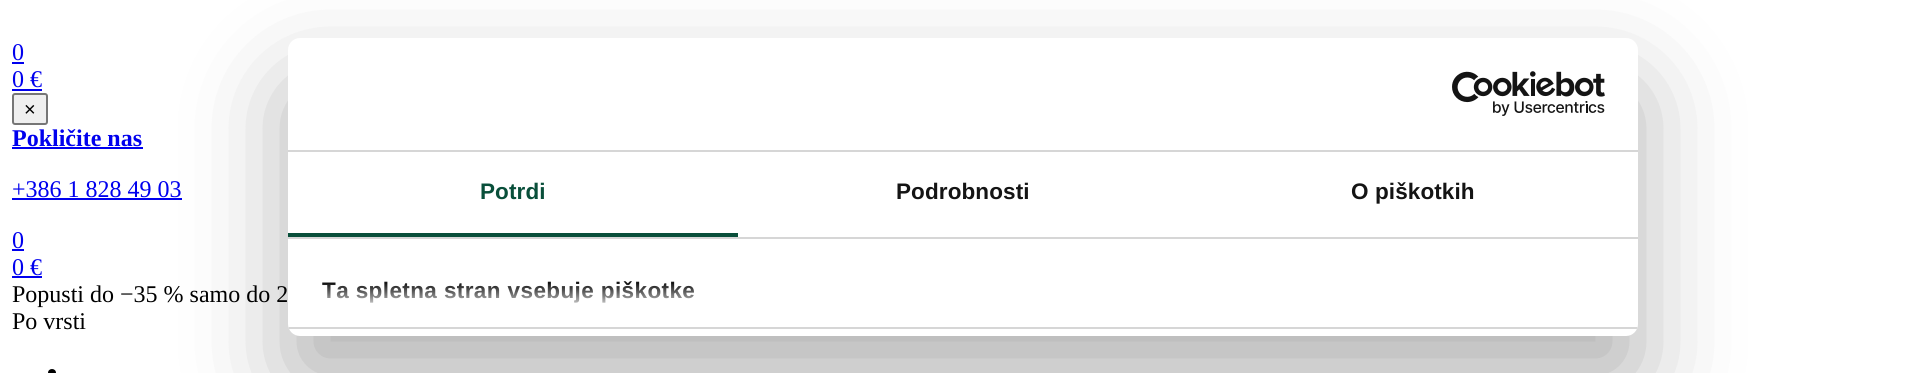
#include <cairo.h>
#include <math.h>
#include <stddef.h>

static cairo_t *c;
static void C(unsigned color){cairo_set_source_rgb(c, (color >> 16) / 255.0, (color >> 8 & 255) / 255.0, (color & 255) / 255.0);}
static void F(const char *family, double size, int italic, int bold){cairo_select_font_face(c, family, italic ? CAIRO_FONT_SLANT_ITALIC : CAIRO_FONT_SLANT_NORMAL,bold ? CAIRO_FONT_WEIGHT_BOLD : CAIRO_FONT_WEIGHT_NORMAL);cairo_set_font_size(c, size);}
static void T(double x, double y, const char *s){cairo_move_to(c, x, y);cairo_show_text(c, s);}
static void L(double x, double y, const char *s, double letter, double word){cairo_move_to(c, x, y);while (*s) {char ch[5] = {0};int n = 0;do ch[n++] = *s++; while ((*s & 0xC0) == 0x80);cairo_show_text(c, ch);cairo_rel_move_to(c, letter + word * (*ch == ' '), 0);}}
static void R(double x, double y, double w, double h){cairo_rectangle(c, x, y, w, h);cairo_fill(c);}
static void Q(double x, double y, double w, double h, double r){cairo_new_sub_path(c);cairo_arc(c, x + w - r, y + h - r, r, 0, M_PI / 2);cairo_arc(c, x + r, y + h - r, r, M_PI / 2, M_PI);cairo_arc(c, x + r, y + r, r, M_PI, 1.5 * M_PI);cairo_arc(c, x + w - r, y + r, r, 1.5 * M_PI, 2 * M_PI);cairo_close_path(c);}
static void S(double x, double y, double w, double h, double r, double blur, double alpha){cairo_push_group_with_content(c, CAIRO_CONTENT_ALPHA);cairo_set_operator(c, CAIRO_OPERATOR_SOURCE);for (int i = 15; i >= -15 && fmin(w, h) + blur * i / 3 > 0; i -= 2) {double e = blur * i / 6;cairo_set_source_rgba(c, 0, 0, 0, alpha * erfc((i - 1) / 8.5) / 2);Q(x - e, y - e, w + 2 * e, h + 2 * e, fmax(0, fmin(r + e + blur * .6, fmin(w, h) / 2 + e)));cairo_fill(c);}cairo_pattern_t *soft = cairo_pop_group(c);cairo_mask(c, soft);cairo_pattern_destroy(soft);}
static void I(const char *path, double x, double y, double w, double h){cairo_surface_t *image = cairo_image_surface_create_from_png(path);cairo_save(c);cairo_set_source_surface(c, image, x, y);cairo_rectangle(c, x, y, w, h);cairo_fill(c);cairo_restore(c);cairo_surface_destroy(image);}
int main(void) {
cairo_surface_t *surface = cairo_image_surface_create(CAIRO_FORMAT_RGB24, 1926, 373);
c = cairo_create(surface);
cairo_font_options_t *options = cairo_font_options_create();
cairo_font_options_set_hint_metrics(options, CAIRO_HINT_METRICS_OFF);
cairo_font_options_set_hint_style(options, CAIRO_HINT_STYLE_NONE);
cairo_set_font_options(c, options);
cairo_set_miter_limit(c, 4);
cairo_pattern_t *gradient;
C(0xffffff);
cairo_paint(c);
F("Liberation Serif",24,0,0);
C(0x0000ee);
T(12,60,"0");
R(12,62,12,2);
T(12,87,"0 €");
R(12,89,30,2);
C(0xefefef);
Q(13,94,34,30,2);
cairo_fill_preserve(c);
C(0x767676);
cairo_stroke(c);
F("Liberation Sans",20,0,0);
C(0x000000);
T(24,116,"×");
F("Liberation Serif",24,0,1);
C(0x0000ee);
T(12,146,"Pokličite nas");
R(12,147,131,2);
F("Liberation Serif",24,0,0);
T(12,197,"+386 1 828 49 03");
R(12,198,170,2);
T(12,248,"0");
R(12,249,12,2);
T(12,275,"0 €");
R(12,276,30,2);
C(0x000000);
S(288,86,1350,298,12,51,.3);
C(0xffffff);
Q(288,38,1350,298,12);
cairo_fill(c);
C(0xd6d6d6);
R(288,150,1350,2);
I("1.png",1452,71,153,45);
R(288,237,1350,2);
C(0x094f3a);
R(288,233,450,4);
F("Liberation Sans",22.5,0,1);
L(480,199,"Potrdi",.1,0);
C(0x141414);
L(896,199,"Podrobnosti",.1,0);
L(1351,199,"O piškotkih",.1,0);
cairo_save(c);
Q(288,38,1350,298,12);
cairo_clip(c);
C(0xd6d6d6);
R(288,327,1350,2);
cairo_restore(c);
L(322,298,"Ta spletna stran vsebuje piškotke",.4,0);
gradient = cairo_pattern_create_linear(948,328,948,283);
cairo_pattern_add_color_stop_rgba(gradient,0,1,1,1,1);
cairo_pattern_add_color_stop_rgba(gradient,.5,1,1,1,.8);
cairo_pattern_add_color_stop_rgba(gradient,1,1,1,1,0);
cairo_set_source(c,gradient);
cairo_pattern_destroy(gradient);
R(322,284,372,19);
F("Liberation Serif",24,0,0);
C(0x000000);
T(12,302,"Popusti do −35 % samo do 2");
T(12,329,"Po vrsti");
cairo_new_path(c);
cairo_arc(c,52,373,4,0,2 * M_PI);
cairo_fill(c);
cairo_surface_write_to_png(surface, "o.png");
cairo_font_options_destroy(options);
cairo_destroy(c);
cairo_surface_destroy(surface);
return 0;
}
